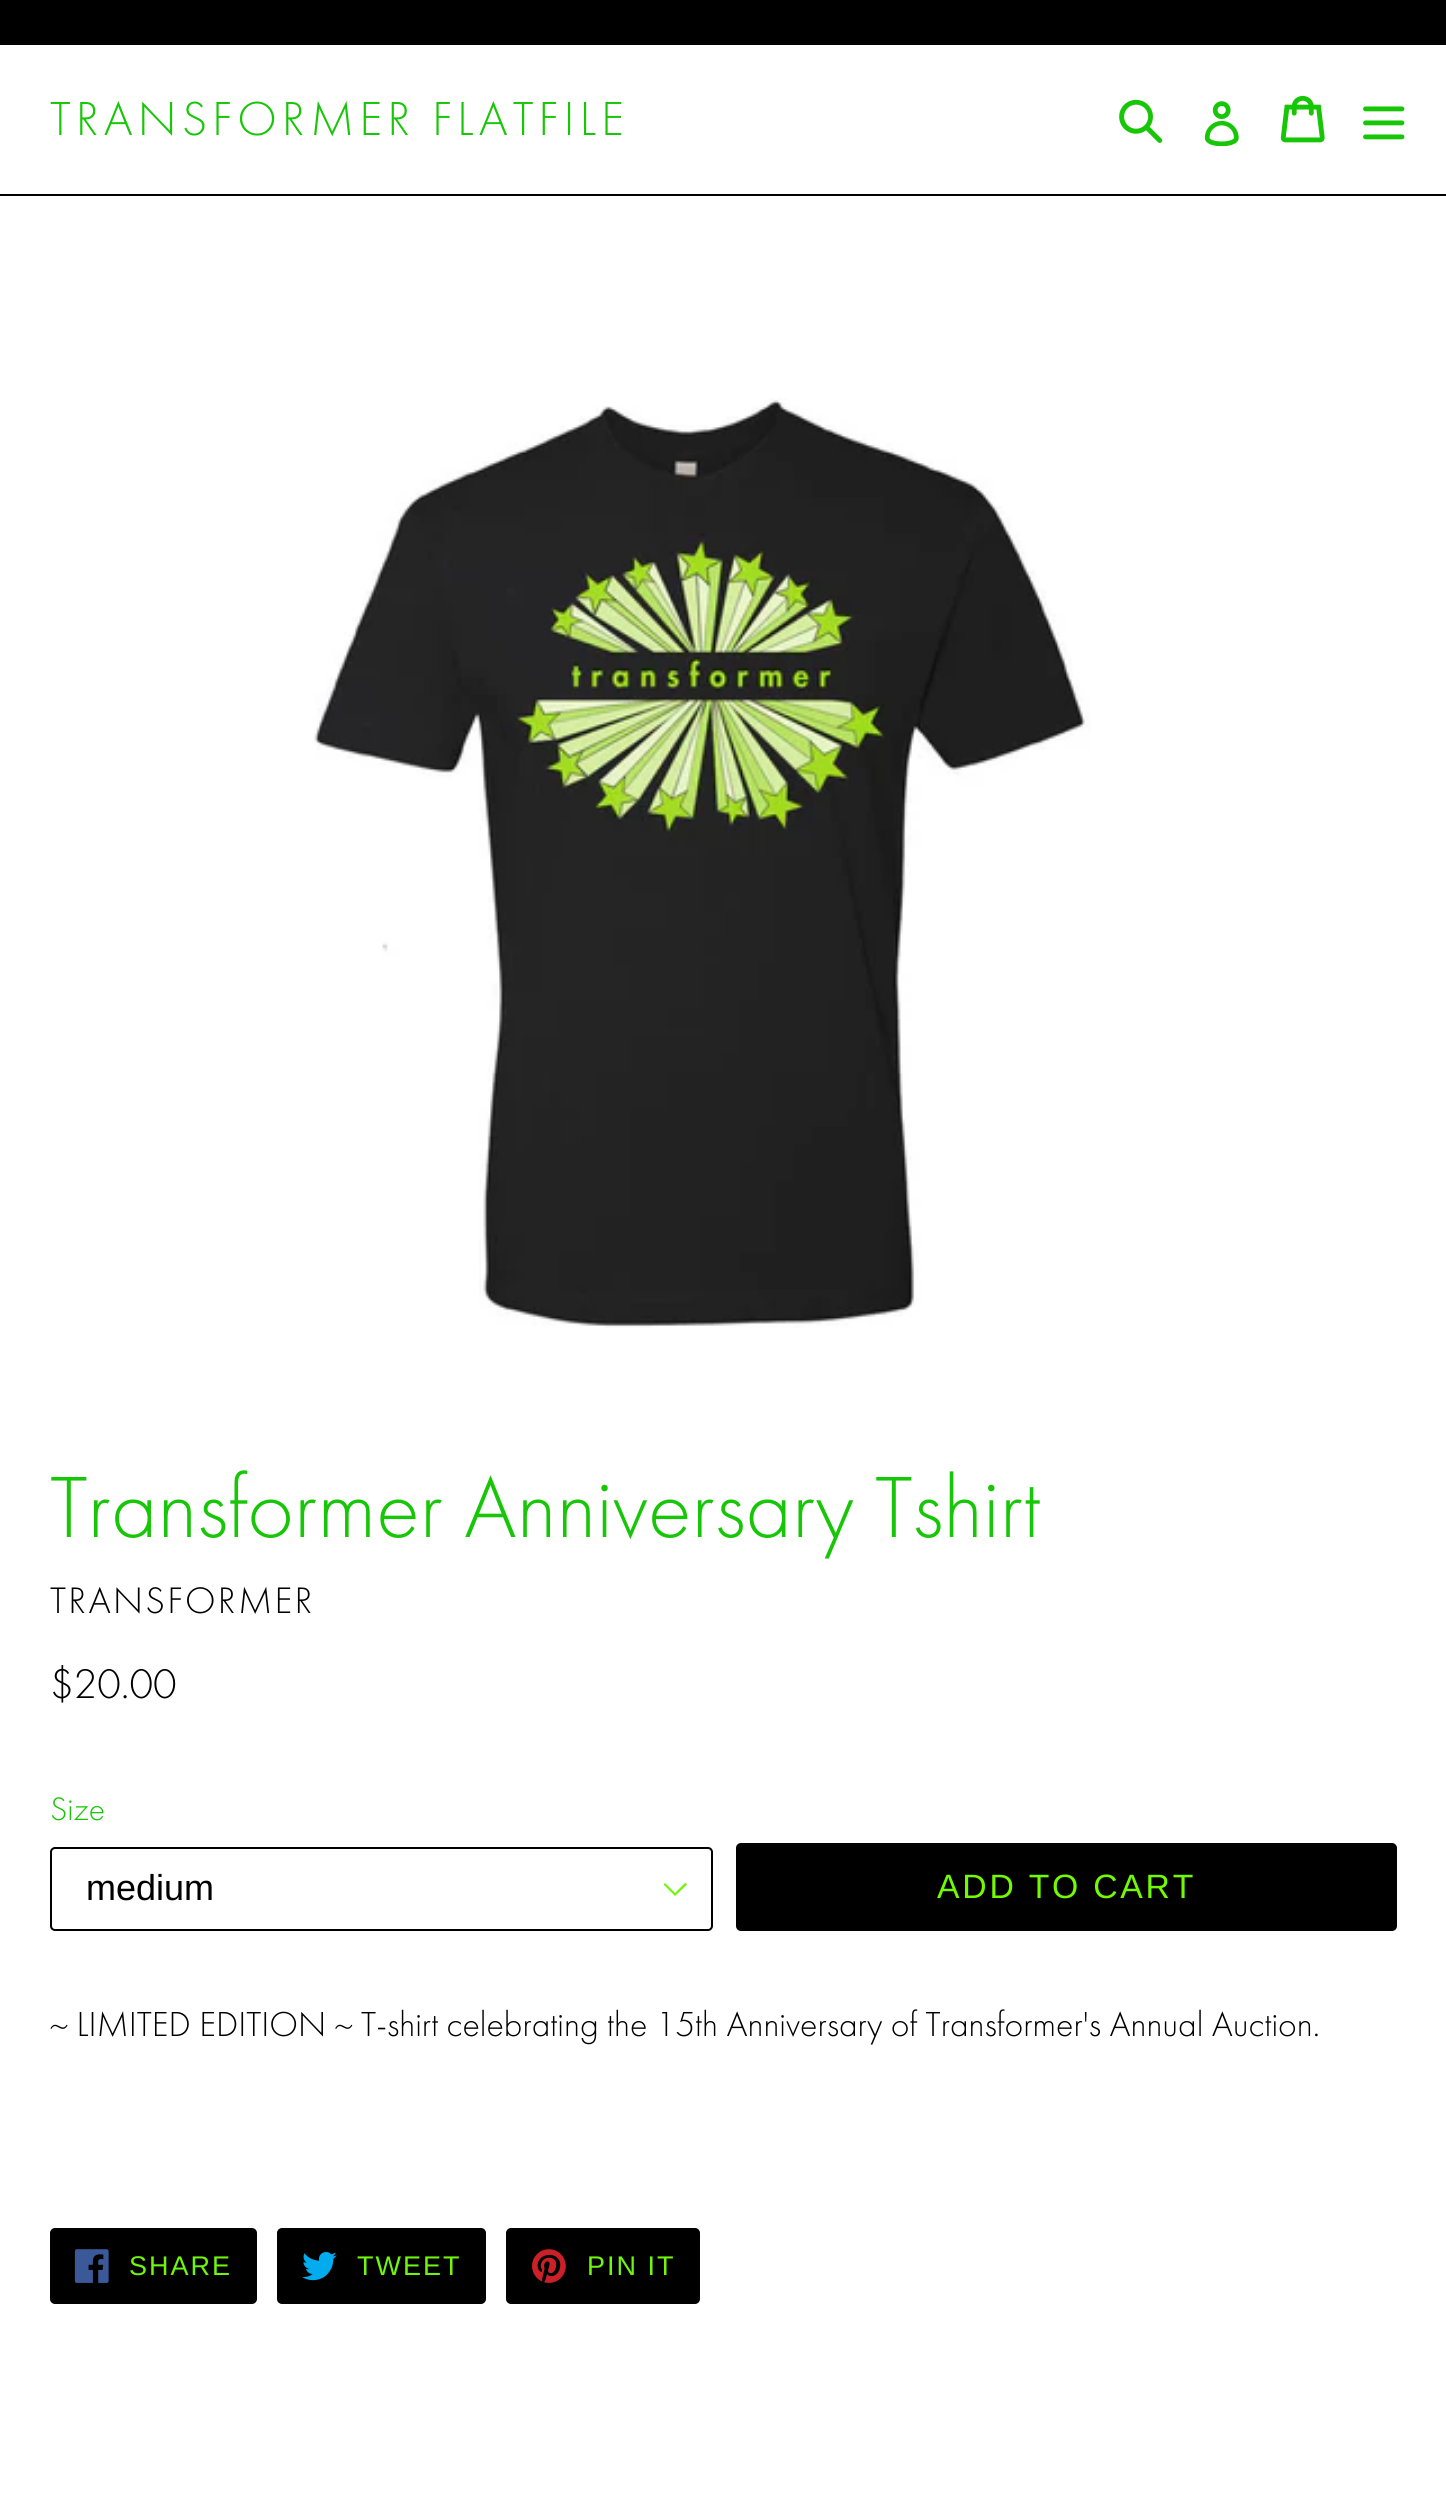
#include <cairo.h>
#include <math.h>
#include <stddef.h>

static cairo_t *c;
static void C(unsigned color){cairo_set_source_rgb(c, (color >> 16) / 255.0, (color >> 8 & 255) / 255.0, (color & 255) / 255.0);}
static void F(const char *family, double size, int italic, int bold){cairo_select_font_face(c, family, italic ? CAIRO_FONT_SLANT_ITALIC : CAIRO_FONT_SLANT_NORMAL,bold ? CAIRO_FONT_WEIGHT_BOLD : CAIRO_FONT_WEIGHT_NORMAL);cairo_set_font_size(c, size);}
static void T(double x, double y, const char *s){cairo_move_to(c, x, y);cairo_show_text(c, s);}
static void L(double x, double y, const char *s, double letter, double word){cairo_move_to(c, x, y);while (*s) {char ch[5] = {0};int n = 0;do ch[n++] = *s++; while ((*s & 0xC0) == 0x80);cairo_show_text(c, ch);cairo_rel_move_to(c, letter + word * (*ch == ' '), 0);}}
static void R(double x, double y, double w, double h){cairo_rectangle(c, x, y, w, h);cairo_fill(c);}
static void Q(double x, double y, double w, double h, double r){cairo_new_sub_path(c);cairo_arc(c, x + w - r, y + h - r, r, 0, M_PI / 2);cairo_arc(c, x + r, y + h - r, r, M_PI / 2, M_PI);cairo_arc(c, x + r, y + r, r, M_PI, 1.5 * M_PI);cairo_arc(c, x + w - r, y + r, r, 1.5 * M_PI, 2 * M_PI);cairo_close_path(c);}
static void I(const char *path, double x, double y, double w, double h){cairo_surface_t *image = cairo_image_surface_create_from_png(path);cairo_save(c);cairo_set_source_surface(c, image, x, y);cairo_rectangle(c, x, y, w, h);cairo_fill(c);cairo_restore(c);cairo_surface_destroy(image);}
int main(void) {
cairo_surface_t *surface = cairo_image_surface_create(CAIRO_FORMAT_RGB24, 1446, 2511);
c = cairo_create(surface);
cairo_font_options_t *options = cairo_font_options_create();
cairo_font_options_set_hint_metrics(options, CAIRO_HINT_METRICS_OFF);
cairo_font_options_set_hint_style(options, CAIRO_HINT_STYLE_NONE);
cairo_set_font_options(c, options);
cairo_set_miter_limit(c, 4);
C(0xffffff);
cairo_paint(c);
C(0x000000);
R(0,0,1446,45);
C(0x010101);
R(0,194,1446,2);
F("Futura PT Light",49.5,0,0);
C(0x17c606);
L(50,135,"TRANSFORMER FLATFILE",5,0);
I("1.png",1119,99,44,44);
I("2.png",1204,101,35,45);
I("3.png",1280,95,45,48);
I("4.png",1363,106,42,34);
I("5.png",314,398,777,930);
F("Futura PT Light",90,0,0);
T(50,1537,"Transformer Anniversary Tshirt");
F("Futura PT Light",38.25,0,0);
C(0x000000);
L(50,1613,"TRANSFORMER",2.25,0);
F("Futura PT Light",43,0,0);
T(50,1698,"$20.00");
F("Futura PT Light",33.75,0,0);
C(0x17c606);
T(50,1820,"Size");
C(0x6ff60b);
cairo_new_path(c);
cairo_move_to(c,675,1896);
cairo_line_to(c,663.5,1884.5);
cairo_line_to(c,665,1883);
cairo_line_to(c,675,1893);
cairo_line_to(c,685.5,1882.5);
cairo_line_to(c,687,1884.5);
cairo_close_path(c);
cairo_fill(c);
Q(51,1848,661,82,4);
C(0x010101);
cairo_stroke(c);
F("Liberation Sans",36,0,0);
C(0x000000);
T(86,1900,"medium");
Q(736,1843,661,88,5);
cairo_fill(c);
F("Liberation Sans",33.75,0,0);
C(0x74fa00);
L(937,1898,"ADD TO CART",2.75,0);
F("Futura PT Light",36,0,0);
C(0x000000);
T(50,2036,"~ LIMITED EDITION ~ T-shirt celebrating the 15th Anniversary of Transformer's Annual Auction.");
Q(51,2229,205,74,4);
cairo_fill_preserve(c);
C(0x010101);
cairo_stroke(c);
I("6.png",74,2249,35,34);
F("Liberation Sans",27,0,0);
C(0x6ff60b);
L(129,2275,"SHARE",2,0);
C(0x000000);
Q(278,2229,207,74,4);
cairo_fill_preserve(c);
C(0x010101);
cairo_stroke(c);
I("7.png",302,2252,35,29);
C(0x6ff60b);
L(357,2275,"TWEET",2,0);
C(0x000000);
Q(507,2229,192,74,4);
cairo_fill_preserve(c);
C(0x010101);
cairo_stroke(c);
I("8.png",532,2249,34,34);
C(0x6ff60b);
L(587,2275,"PIN IT",2,0);
cairo_surface_write_to_png(surface, "o.png");
cairo_font_options_destroy(options);
cairo_destroy(c);
cairo_surface_destroy(surface);
return 0;
}
